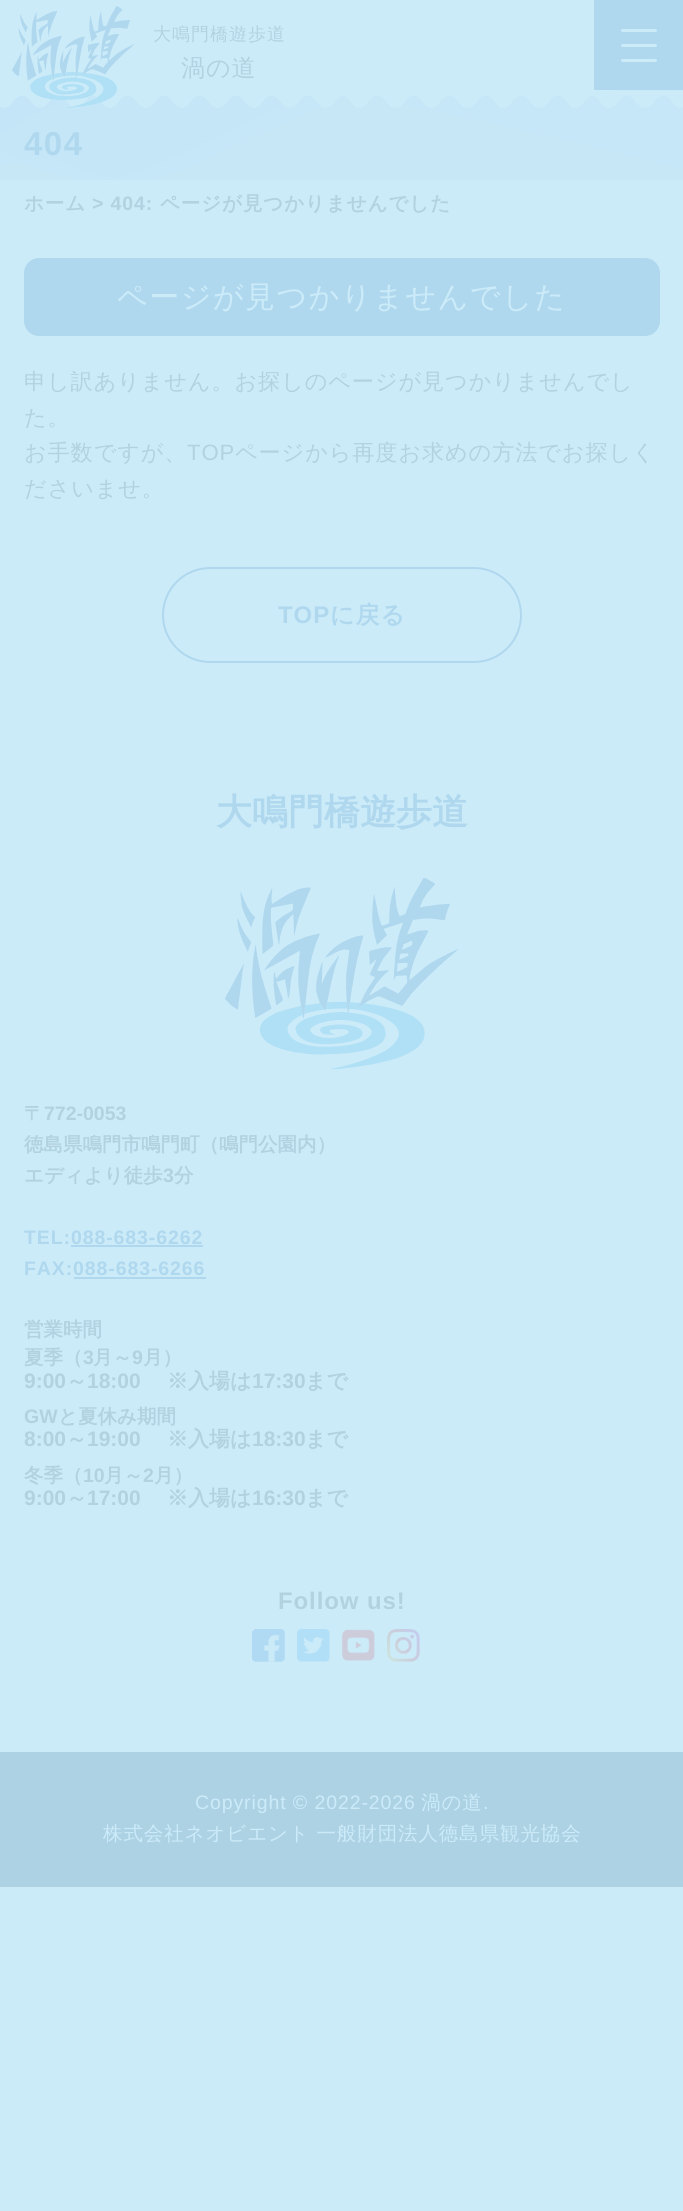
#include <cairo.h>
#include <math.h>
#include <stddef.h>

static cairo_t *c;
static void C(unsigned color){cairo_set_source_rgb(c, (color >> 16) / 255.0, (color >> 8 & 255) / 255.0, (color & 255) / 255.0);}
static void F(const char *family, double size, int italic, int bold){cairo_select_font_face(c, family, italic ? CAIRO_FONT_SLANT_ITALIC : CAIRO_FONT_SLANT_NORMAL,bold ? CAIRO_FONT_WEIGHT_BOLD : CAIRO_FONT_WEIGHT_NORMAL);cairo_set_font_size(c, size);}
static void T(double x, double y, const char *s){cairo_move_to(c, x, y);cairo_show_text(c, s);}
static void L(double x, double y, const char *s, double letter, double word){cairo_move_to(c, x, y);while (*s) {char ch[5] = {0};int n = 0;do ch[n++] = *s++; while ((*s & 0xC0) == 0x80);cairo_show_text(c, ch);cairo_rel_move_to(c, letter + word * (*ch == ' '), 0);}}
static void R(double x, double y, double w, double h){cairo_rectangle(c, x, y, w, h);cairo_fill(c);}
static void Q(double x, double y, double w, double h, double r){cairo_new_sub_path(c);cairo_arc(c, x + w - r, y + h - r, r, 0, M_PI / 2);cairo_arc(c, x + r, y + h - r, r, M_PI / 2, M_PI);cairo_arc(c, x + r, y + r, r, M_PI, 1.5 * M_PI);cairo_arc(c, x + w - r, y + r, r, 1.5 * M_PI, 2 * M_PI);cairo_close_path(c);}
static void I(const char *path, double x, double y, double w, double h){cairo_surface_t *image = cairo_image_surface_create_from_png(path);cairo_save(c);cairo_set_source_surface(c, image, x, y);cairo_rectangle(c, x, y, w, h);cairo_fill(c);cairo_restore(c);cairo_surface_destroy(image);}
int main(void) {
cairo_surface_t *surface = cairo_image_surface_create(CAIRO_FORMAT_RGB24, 683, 2211);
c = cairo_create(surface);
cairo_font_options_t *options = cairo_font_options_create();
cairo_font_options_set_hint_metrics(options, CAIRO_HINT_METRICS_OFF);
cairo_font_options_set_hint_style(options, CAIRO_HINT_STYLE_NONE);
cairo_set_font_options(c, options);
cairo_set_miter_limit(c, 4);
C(0xccebf9);
cairo_paint(c);
I("3.png",0,90,683,90);
I("2.png",0,90,683,18);
I("1.png",12,6,123,102);
F("WenQuanYi Zen Hei Medium",18,0,0);
C(0xb3d2e0);
L(153,40,"大鳴門橋遊歩道",1,0);
F("WenQuanYi Zen Hei Medium",24,0,0);
L(181,76,"渦の道",1,0);
C(0xafd8ee);
R(594,0,89,90);
C(0xccebf9);
Q(621,44,36,3,1.5);
cairo_fill(c);
Q(621,29,36,3,1.5);
cairo_fill(c);
Q(621,59,36,3,1.5);
cairo_fill(c);
F("Liberation Sans",33,0,1);
C(0xafd8ee);
L(24,155,"404",1.5,0);
F("WenQuanYi Zen Hei",19.5,0,1);
C(0xb3d2e0);
L(24,210,"ホーム",.9,0);
F("Liberation Sans",19.5,0,1);
L(92,210,"> 404:",.9,0);
F("WenQuanYi Zen Hei",19.5,0,1);
L(160,210,"ページが見つかりませんでした",.9,0);
C(0xafd8ee);
Q(24,258,636,78,15);
cairo_fill(c);
F("WenQuanYi Zen Hei Medium",30,0,0);
C(0xccebf9);
L(117,307,"ページが見つかりませんでした",1.5,0);
F("WenQuanYi Zen Hei Medium",22.15,0,0);
C(0xb3d2e0);
L(24,389,"申し訳ありません。お探しのページが見つかりませんでし",.9,0);
L(24,425,"た。",.9,0);
L(24,460,"お手数ですが、",.9,0);
F("Liberation Sans",22.15,0,0);
L(187,460,"TOP",.9,0);
F("WenQuanYi Zen Hei Medium",22.15,0,0);
L(235,460,"ページから再度お求めの方法でお探しく",.9,0);
L(24,496,"ださいませ。",.9,0);
Q(163,568,358,94,47);
C(0xafd8ee);
cairo_stroke(c);
F("Liberation Sans",24,0,1);
L(278,623,"TOP",.9,0);
F("WenQuanYi Zen Hei",24,0,1);
L(330,623,"に戻る",.9,0);
F("WenQuanYi Zen Hei",36,0,1);
T(216,824,"大鳴門橋遊歩道");
I("4.png",225,878,234,192);
F("WenQuanYi Zen Hei",19.5,0,1);
C(0xb3d2e0);
T(24,1120,"〒");
F("Liberation Sans",19.5,0,1);
T(44,1120,"772-0053");
F("WenQuanYi Zen Hei",19.5,0,1);
T(24,1151,"徳島県鳴門市鳴門町（鳴門公園内）");
T(24,1182,"エディより徒歩");
F("Liberation Sans",19.5,0,1);
T(163,1182,"3");
F("WenQuanYi Zen Hei",19.5,0,1);
T(174,1182,"分");
F("Liberation Sans",19.5,0,1);
C(0xafd8ee);
L(24,1244,"TEL:088-683-6262",.9,0);
R(71,1245,132,2);
L(24,1275,"FAX:088-683-6266",.9,0);
R(74,1277,132,2);
F("WenQuanYi Zen Hei",19.5,0,1);
C(0xb3d2e0);
T(24,1336,"営業時間");
T(24,1364,"夏季（");
F("Liberation Sans",19.5,0,1);
T(83,1364,"3");
F("WenQuanYi Zen Hei",19.5,0,1);
T(93,1364,"月～");
F("Liberation Sans",19.5,0,1);
T(132,1364,"9");
F("WenQuanYi Zen Hei",19.5,0,1);
T(143,1364,"月）");
F("Liberation Sans",21,0,1);
T(24,1388,"9:00");
F("WenQuanYi Zen Hei",21,0,1);
T(66,1388,"～");
F("Liberation Sans",21,0,1);
T(87,1388,"18:00");
F("WenQuanYi Zen Hei",21,0,1);
T(167,1388,"※入場は");
F("Liberation Sans",21,0,1);
T(252,1388,"17:30");
F("WenQuanYi Zen Hei",21,0,1);
T(305,1388,"まで");
F("Liberation Sans",19.5,0,1);
T(24,1423,"GW");
F("WenQuanYi Zen Hei",19.5,0,1);
T(58,1423,"と夏休み期間");
F("Liberation Sans",21,0,1);
T(24,1446,"8:00");
F("WenQuanYi Zen Hei",21,0,1);
T(66,1446,"～");
F("Liberation Sans",21,0,1);
T(87,1446,"19:00");
F("WenQuanYi Zen Hei",21,0,1);
T(167,1446,"※入場は");
F("Liberation Sans",21,0,1);
T(252,1446,"18:30");
F("WenQuanYi Zen Hei",21,0,1);
T(305,1446,"まで");
F("WenQuanYi Zen Hei",19.5,0,1);
T(24,1482,"冬季（");
F("Liberation Sans",19.5,0,1);
T(83,1482,"10");
F("WenQuanYi Zen Hei",19.5,0,1);
T(104,1482,"月～");
F("Liberation Sans",19.5,0,1);
T(143,1482,"2");
F("WenQuanYi Zen Hei",19.5,0,1);
T(154,1482,"月）");
F("Liberation Sans",21,0,1);
T(24,1505,"9:00");
F("WenQuanYi Zen Hei",21,0,1);
T(66,1505,"～");
F("Liberation Sans",21,0,1);
T(87,1505,"17:00");
F("WenQuanYi Zen Hei",21,0,1);
T(167,1505,"※入場は");
F("Liberation Sans",21,0,1);
T(252,1505,"16:30");
F("WenQuanYi Zen Hei",21,0,1);
T(305,1505,"まで");
F("Liberation Sans",24,0,1);
L(278,1609,"Follow us!",.9,0);
I("5.png",252,1629,33,33);
I("6.png",297,1629,33,33);
I("7.png",342,1629,33,32);
I("8.png",387,1629,33,33);
C(0xadd2e4);
R(0,1752,683,135);
F("Liberation Sans",19.5,0,0);
C(0xccebf9);
L(195,1809,"Copyright © 2022-2026",.9,0);
F("WenQuanYi Zen Hei Medium",19.5,0,0);
L(421,1809,"渦の道",.9,0);
F("Liberation Sans",19.5,0,0);
L(483,1809,".",.9,0);
F("WenQuanYi Zen Hei Medium",19.5,0,0);
L(103,1840,"株式会社ネオビエント 一般財団法人徳島県観光協会",.9,0);
cairo_surface_write_to_png(surface, "o.png");
cairo_font_options_destroy(options);
cairo_destroy(c);
cairo_surface_destroy(surface);
return 0;
}
